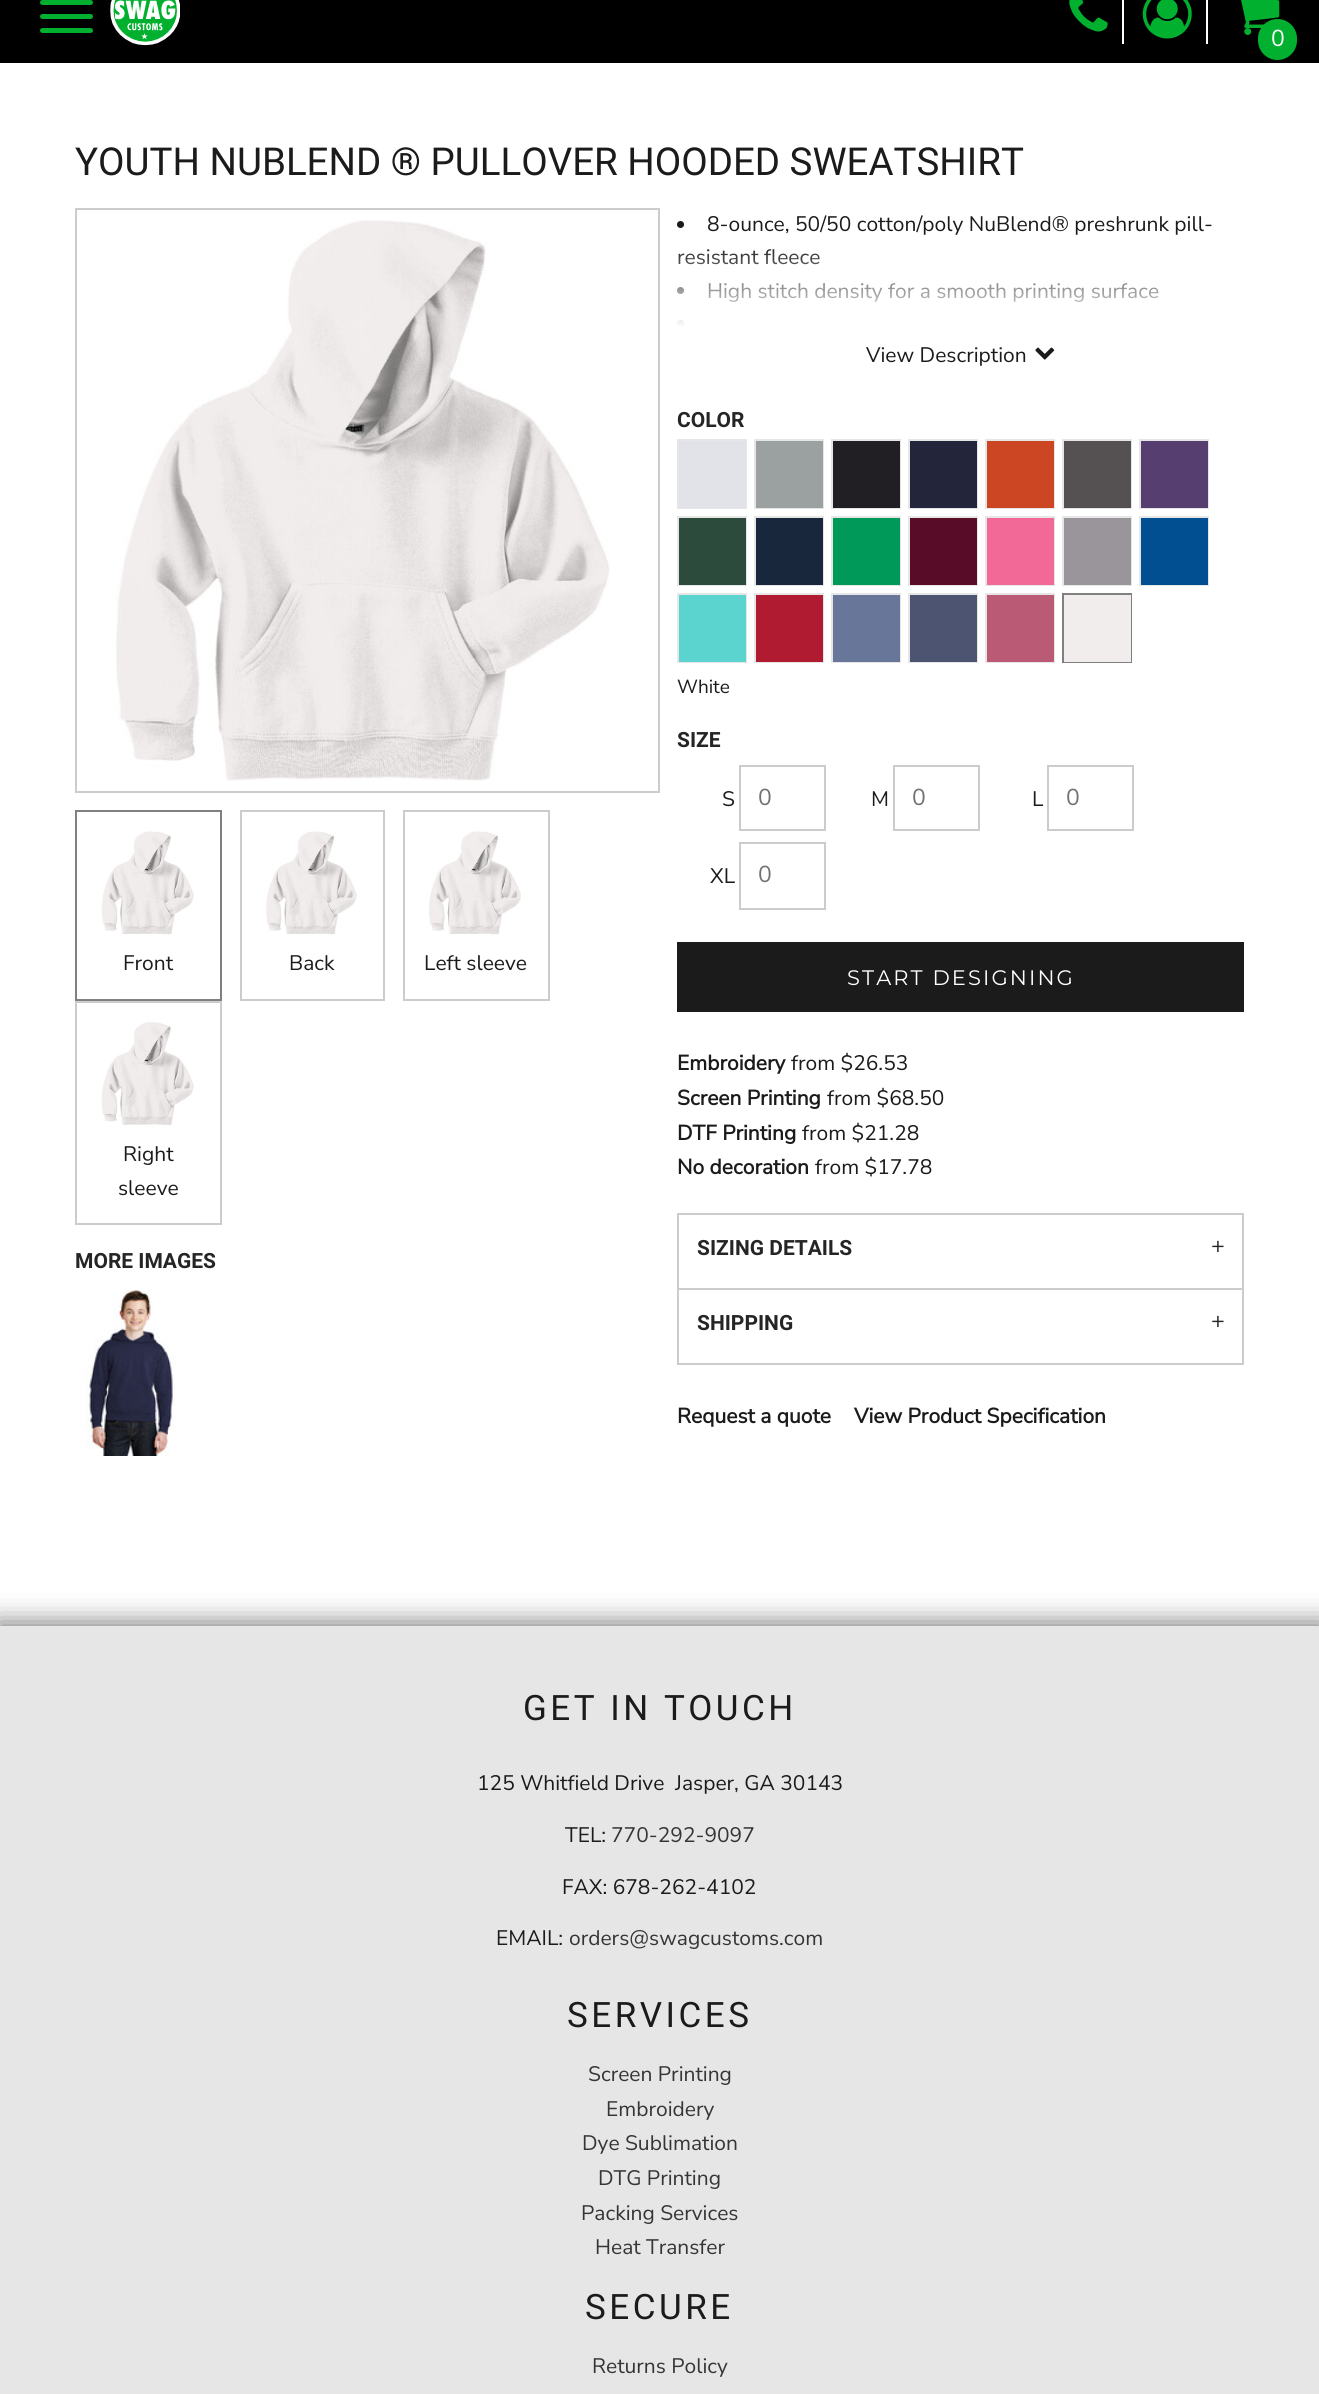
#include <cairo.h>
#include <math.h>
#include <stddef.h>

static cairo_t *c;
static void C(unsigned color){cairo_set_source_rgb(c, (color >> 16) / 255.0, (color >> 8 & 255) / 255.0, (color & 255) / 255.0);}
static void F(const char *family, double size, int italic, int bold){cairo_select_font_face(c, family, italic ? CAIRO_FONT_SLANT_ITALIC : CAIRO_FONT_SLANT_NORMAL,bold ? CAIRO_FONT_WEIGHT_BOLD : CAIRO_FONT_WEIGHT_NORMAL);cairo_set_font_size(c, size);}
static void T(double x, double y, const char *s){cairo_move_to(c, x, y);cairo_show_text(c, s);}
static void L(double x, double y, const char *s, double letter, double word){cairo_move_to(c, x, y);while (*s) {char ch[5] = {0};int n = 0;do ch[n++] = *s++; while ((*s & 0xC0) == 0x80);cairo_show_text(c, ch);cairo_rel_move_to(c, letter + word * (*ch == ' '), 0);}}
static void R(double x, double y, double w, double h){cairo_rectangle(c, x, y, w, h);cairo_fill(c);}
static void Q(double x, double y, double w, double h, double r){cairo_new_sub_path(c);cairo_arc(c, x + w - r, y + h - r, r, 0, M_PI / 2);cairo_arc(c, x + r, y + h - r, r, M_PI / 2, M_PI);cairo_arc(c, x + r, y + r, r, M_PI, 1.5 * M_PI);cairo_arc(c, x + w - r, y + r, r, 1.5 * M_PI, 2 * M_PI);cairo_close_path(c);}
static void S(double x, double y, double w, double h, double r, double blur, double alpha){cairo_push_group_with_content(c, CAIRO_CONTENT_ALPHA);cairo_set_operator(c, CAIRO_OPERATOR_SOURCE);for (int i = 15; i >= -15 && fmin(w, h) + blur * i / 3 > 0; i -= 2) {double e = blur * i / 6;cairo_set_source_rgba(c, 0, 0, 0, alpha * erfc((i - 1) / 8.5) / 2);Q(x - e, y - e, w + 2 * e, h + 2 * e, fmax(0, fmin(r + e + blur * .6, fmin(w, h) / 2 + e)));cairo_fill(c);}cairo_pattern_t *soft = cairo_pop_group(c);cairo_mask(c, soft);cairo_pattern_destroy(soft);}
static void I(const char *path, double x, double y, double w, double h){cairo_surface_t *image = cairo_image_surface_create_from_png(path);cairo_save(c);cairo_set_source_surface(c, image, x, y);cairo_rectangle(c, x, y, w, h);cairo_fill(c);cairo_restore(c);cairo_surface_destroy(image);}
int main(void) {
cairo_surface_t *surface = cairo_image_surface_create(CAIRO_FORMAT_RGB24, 1319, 2394);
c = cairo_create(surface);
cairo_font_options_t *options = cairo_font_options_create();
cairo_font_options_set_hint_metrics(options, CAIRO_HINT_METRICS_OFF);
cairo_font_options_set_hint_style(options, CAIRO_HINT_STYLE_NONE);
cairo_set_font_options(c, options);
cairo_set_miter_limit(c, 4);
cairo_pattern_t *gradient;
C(0xffffff);
cairo_paint(c);
C(0x000000);
R(0,0,1319,63);
C(0x00b02e);
Q(40,0,53,5,2.5);
cairo_fill(c);
Q(40,14,53,5,2.5);
cairo_fill(c);
Q(40,28,53,5,2.5);
cairo_fill(c);
I("1.png",110,0,70,46);
C(0xffffff);
R(1122,0,2,44);
I("2.png",1069,0,39,32);
R(1206,0,2,44);
I("3.png",1142,0,50,39);
I("4.png",1241,0,39,35);
C(0x00b02e);
Q(1258,19,39,41,19.5);
cairo_fill(c);
F("Nunito Sans ExtraLight",23,0,0);
C(0xffffff);
T(1271,46,"0");
F("Roboto",38.5,0,0);
C(0x1c1b1b);
T(75,175,"YOUTH NUBLEND ® PULLOVER HOODED SWEATSHIRT");
cairo_rectangle(c,76,209,583,583);
C(0xcccccc);
cairo_stroke(c);
I("5.png",116,220,494,561);
cairo_rectangle(c,76,811,145,189);
C(0x808080);
cairo_stroke(c);
I("6.png",101,831,93,104);
F("Nunito Sans ExtraLight",21,0,0);
C(0x1c1b1b);
T(123,970,"Front");
cairo_rectangle(c,241,811,143,189);
C(0xcccccc);
cairo_stroke(c);
I("7.png",266,831,91,104);
C(0x1c1b1b);
T(289,970,"Back");
cairo_rectangle(c,404,811,145,189);
C(0xcccccc);
cairo_stroke(c);
I("8.png",429,831,92,104);
C(0x1c1b1b);
T(424,970,"Left sleeve");
cairo_rectangle(c,76,1002,145,222);
C(0xcccccc);
cairo_stroke(c);
I("9.png",101,1022,93,103);
C(0x1c1b1b);
T(123,1161,"Right");
T(118,1195,"sleeve");
F("Roboto",21,0,1);
C(0x252525);
T(75,1268,"MORE IMAGES");
I("10.png",85,1290,92,166);
C(0x1c1b1b);
cairo_arc(c,680.5,224.5,3.5,0,2 * M_PI);
cairo_fill(c);
F("Nunito Sans ExtraLight",21,0,0);
T(707,231,"8-ounce, 50/50 cotton/poly NuBlend® preshrunk pill-");
T(677,264,"resistant fleece");
cairo_new_path(c);
cairo_arc(c,680.5,290.5,3.5,0,2 * M_PI);
cairo_fill(c);
T(707,298,"High stitch density for a smooth printing surface");
cairo_new_path(c);
cairo_arc(c,680.5,323.5,3.5,0,2 * M_PI);
cairo_fill(c);
gradient = cairo_pattern_create_linear(961,383,961,243);
cairo_pattern_add_color_stop_rgba(gradient,0,1,1,1,1);
cairo_pattern_add_color_stop_rgba(gradient,.4,1,1,1,1);
cairo_pattern_add_color_stop_rgba(gradient,1,1,1,1,0);
cairo_set_source(c,gradient);
cairo_pattern_destroy(gradient);
R(677,249,482,78);
C(0x1c1b1b);
T(866,362,"View Description");
I("11.png",1035,347,20,13);
F("Roboto",21,0,1);
C(0x252525);
T(677,427,"COLOR");
cairo_rectangle(c,678,440,68,68);
C(0xe6e6e6);
cairo_stroke(c);
C(0xe2e2e9);
R(679,441,67,67);
cairo_rectangle(c,755,440,68,68);
C(0xe6e6e6);
cairo_stroke(c);
C(0x9ba1a1);
R(756,441,67,67);
cairo_rectangle(c,832,440,68,68);
C(0xe6e6e6);
cairo_stroke(c);
C(0x211f24);
R(833,441,67,67);
cairo_rectangle(c,909,440,68,68);
C(0xe6e6e6);
cairo_stroke(c);
C(0x23253a);
R(910,441,67,67);
cairo_rectangle(c,986,440,68,68);
C(0xe6e6e6);
cairo_stroke(c);
C(0xcc4623);
R(987,441,67,67);
cairo_rectangle(c,1063,440,68,68);
C(0xe6e6e6);
cairo_stroke(c);
C(0x555152);
R(1064,441,67,67);
cairo_rectangle(c,1140,440,68,68);
C(0xe6e6e6);
cairo_stroke(c);
C(0x563e71);
R(1141,441,67,67);
cairo_rectangle(c,678,517,68,68);
C(0xe6e6e6);
cairo_stroke(c);
C(0x2c4b3c);
R(679,518,67,67);
cairo_rectangle(c,755,517,68,68);
C(0xe6e6e6);
cairo_stroke(c);
C(0x18273b);
R(756,518,67,67);
cairo_rectangle(c,832,517,68,68);
C(0xe6e6e6);
cairo_stroke(c);
C(0x009959);
R(833,518,67,67);
cairo_rectangle(c,909,517,68,68);
C(0xe6e6e6);
cairo_stroke(c);
C(0x590c27);
R(910,518,67,67);
cairo_rectangle(c,986,517,68,68);
C(0xe6e6e6);
cairo_stroke(c);
C(0xf26997);
R(987,518,67,67);
cairo_rectangle(c,1063,517,68,68);
C(0xe6e6e6);
cairo_stroke(c);
C(0x9a959b);
R(1064,518,67,67);
cairo_rectangle(c,1140,517,68,68);
C(0xe6e6e6);
cairo_stroke(c);
C(0x014e91);
R(1141,518,67,67);
cairo_rectangle(c,678,594,68,68);
C(0xe6e6e6);
cairo_stroke(c);
C(0x5bd4cf);
R(679,595,67,67);
cairo_rectangle(c,755,594,68,68);
C(0xe6e6e6);
cairo_stroke(c);
C(0xb01b31);
R(756,595,67,67);
cairo_rectangle(c,832,594,68,68);
C(0xe6e6e6);
cairo_stroke(c);
C(0x687699);
R(833,595,67,67);
cairo_rectangle(c,909,594,68,68);
C(0xe6e6e6);
cairo_stroke(c);
C(0x4d5471);
R(910,595,67,67);
cairo_rectangle(c,986,594,68,68);
C(0xe6e6e6);
cairo_stroke(c);
C(0xba5a75);
R(987,595,67,67);
cairo_rectangle(c,1063,594,68,68);
C(0x808080);
cairo_stroke(c);
C(0xf1edec);
R(1064,595,67,67);
F("Nunito Sans ExtraLight",19,0,0);
C(0x1c1b1b);
T(677,693,"White");
F("Roboto",21,0,1);
C(0x252525);
T(677,747,"SIZE");
F("Nunito Sans ExtraLight",21,0,0);
C(0x1c1b1b);
T(722,806,"S");
cairo_rectangle(c,740,766,85,64);
C(0xcccccc);
cairo_stroke(c);
F("Nunito Sans ExtraLight",23,0,0);
C(0x717171);
T(758,805,"0");
F("Nunito Sans ExtraLight",21,0,0);
C(0x1c1b1b);
T(871,806,"M");
cairo_rectangle(c,894,766,85,64);
C(0xcccccc);
cairo_stroke(c);
F("Nunito Sans ExtraLight",23,0,0);
C(0x717171);
T(912,805,"0");
F("Nunito Sans ExtraLight",21,0,0);
C(0x1c1b1b);
T(1032,806,"L");
cairo_rectangle(c,1048,766,85,64);
C(0xcccccc);
cairo_stroke(c);
F("Nunito Sans ExtraLight",23,0,0);
C(0x717171);
T(1066,805,"0");
F("Nunito Sans ExtraLight",21,0,0);
C(0x1c1b1b);
T(710,883,"XL");
cairo_rectangle(c,740,843,85,66);
C(0xcccccc);
cairo_stroke(c);
F("Nunito Sans ExtraLight",23,0,0);
C(0x717171);
T(758,882,"0");
C(0x1c1b1b);
R(677,942,567,70);
F("Montserrat Thin",21,0,0);
C(0xffffff);
L(847,985,"START DESIGNING",2.1,0);
F("Nunito Sans",21,0,1);
C(0x1c1b1b);
T(677,1070,"Embroidery");
F("Nunito Sans ExtraLight",21,0,0);
T(791,1070,"from $26.53");
F("Nunito Sans",21,0,1);
T(677,1105,"Screen Printing");
F("Nunito Sans ExtraLight",21,0,0);
T(827,1105,"from $68.50");
F("Nunito Sans",21,0,1);
T(677,1140,"DTF Printing");
F("Nunito Sans ExtraLight",21,0,0);
T(802,1140,"from $21.28");
F("Nunito Sans",21,0,1);
T(677,1174,"No decoration");
F("Nunito Sans ExtraLight",21,0,0);
T(815,1174,"from $17.78");
cairo_rectangle(c,678,1214,565,150);
C(0xcccccc);
cairo_stroke(c);
F("Roboto",21,0,1);
C(0x252525);
T(697,1255,"SIZING DETAILS");
F("Nunito Sans ExtraLight",23,0,0);
T(1211,1253,"+");
C(0xcccccc);
R(679,1288,564,2);
F("Roboto",21,0,1);
C(0x252525);
T(697,1330,"SHIPPING");
F("Nunito Sans ExtraLight",23,0,0);
T(1211,1328,"+");
F("Nunito Sans",21,0,1);
C(0x1c1b1b);
T(677,1423,"Request a quote");
T(854,1423,"View Product Specification");
C(0x000000);
S(-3,1622,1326,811,0,13,.5);
C(0xe6e6e6);
R(0,1626,1319,768);
F("Roboto",35,0,0);
C(0x1c1b1b);
L(523,1720,"GET IN TOUCH",3.5,0);
F("Nunito Sans ExtraLight",21,0,0);
T(477,1790,"125 Whitfield Drive  Jasper, GA 30143");
T(565,1842,"TEL:");
C(0x363434);
T(611,1842,"770-292-9097");
C(0x1c1b1b);
T(562,1894,"FAX: 678-262-4102");
T(496,1945,"EMAIL:");
C(0x363434);
T(569,1945,"orders@swagcustoms.com");
F("Roboto",35,0,0);
C(0x1c1b1b);
L(567,2027,"SERVICES",3.5,0);
F("Nunito Sans ExtraLight",21,0,0);
C(0x363434);
T(588,2081,"Screen Printing");
T(606,2116,"Embroidery");
T(582,2150,"Dye Sublimation");
T(598,2185,"DTG Printing");
T(581,2220,"Packing Services");
T(595,2254,"Heat Transfer");
F("Roboto",35,0,0);
C(0x1c1b1b);
L(585,2319,"SECURE",3.5,0);
F("Nunito Sans ExtraLight",21,0,0);
C(0x363434);
T(592,2373,"Returns Policy");
cairo_surface_write_to_png(surface, "o.png");
cairo_font_options_destroy(options);
cairo_destroy(c);
cairo_surface_destroy(surface);
return 0;
}
